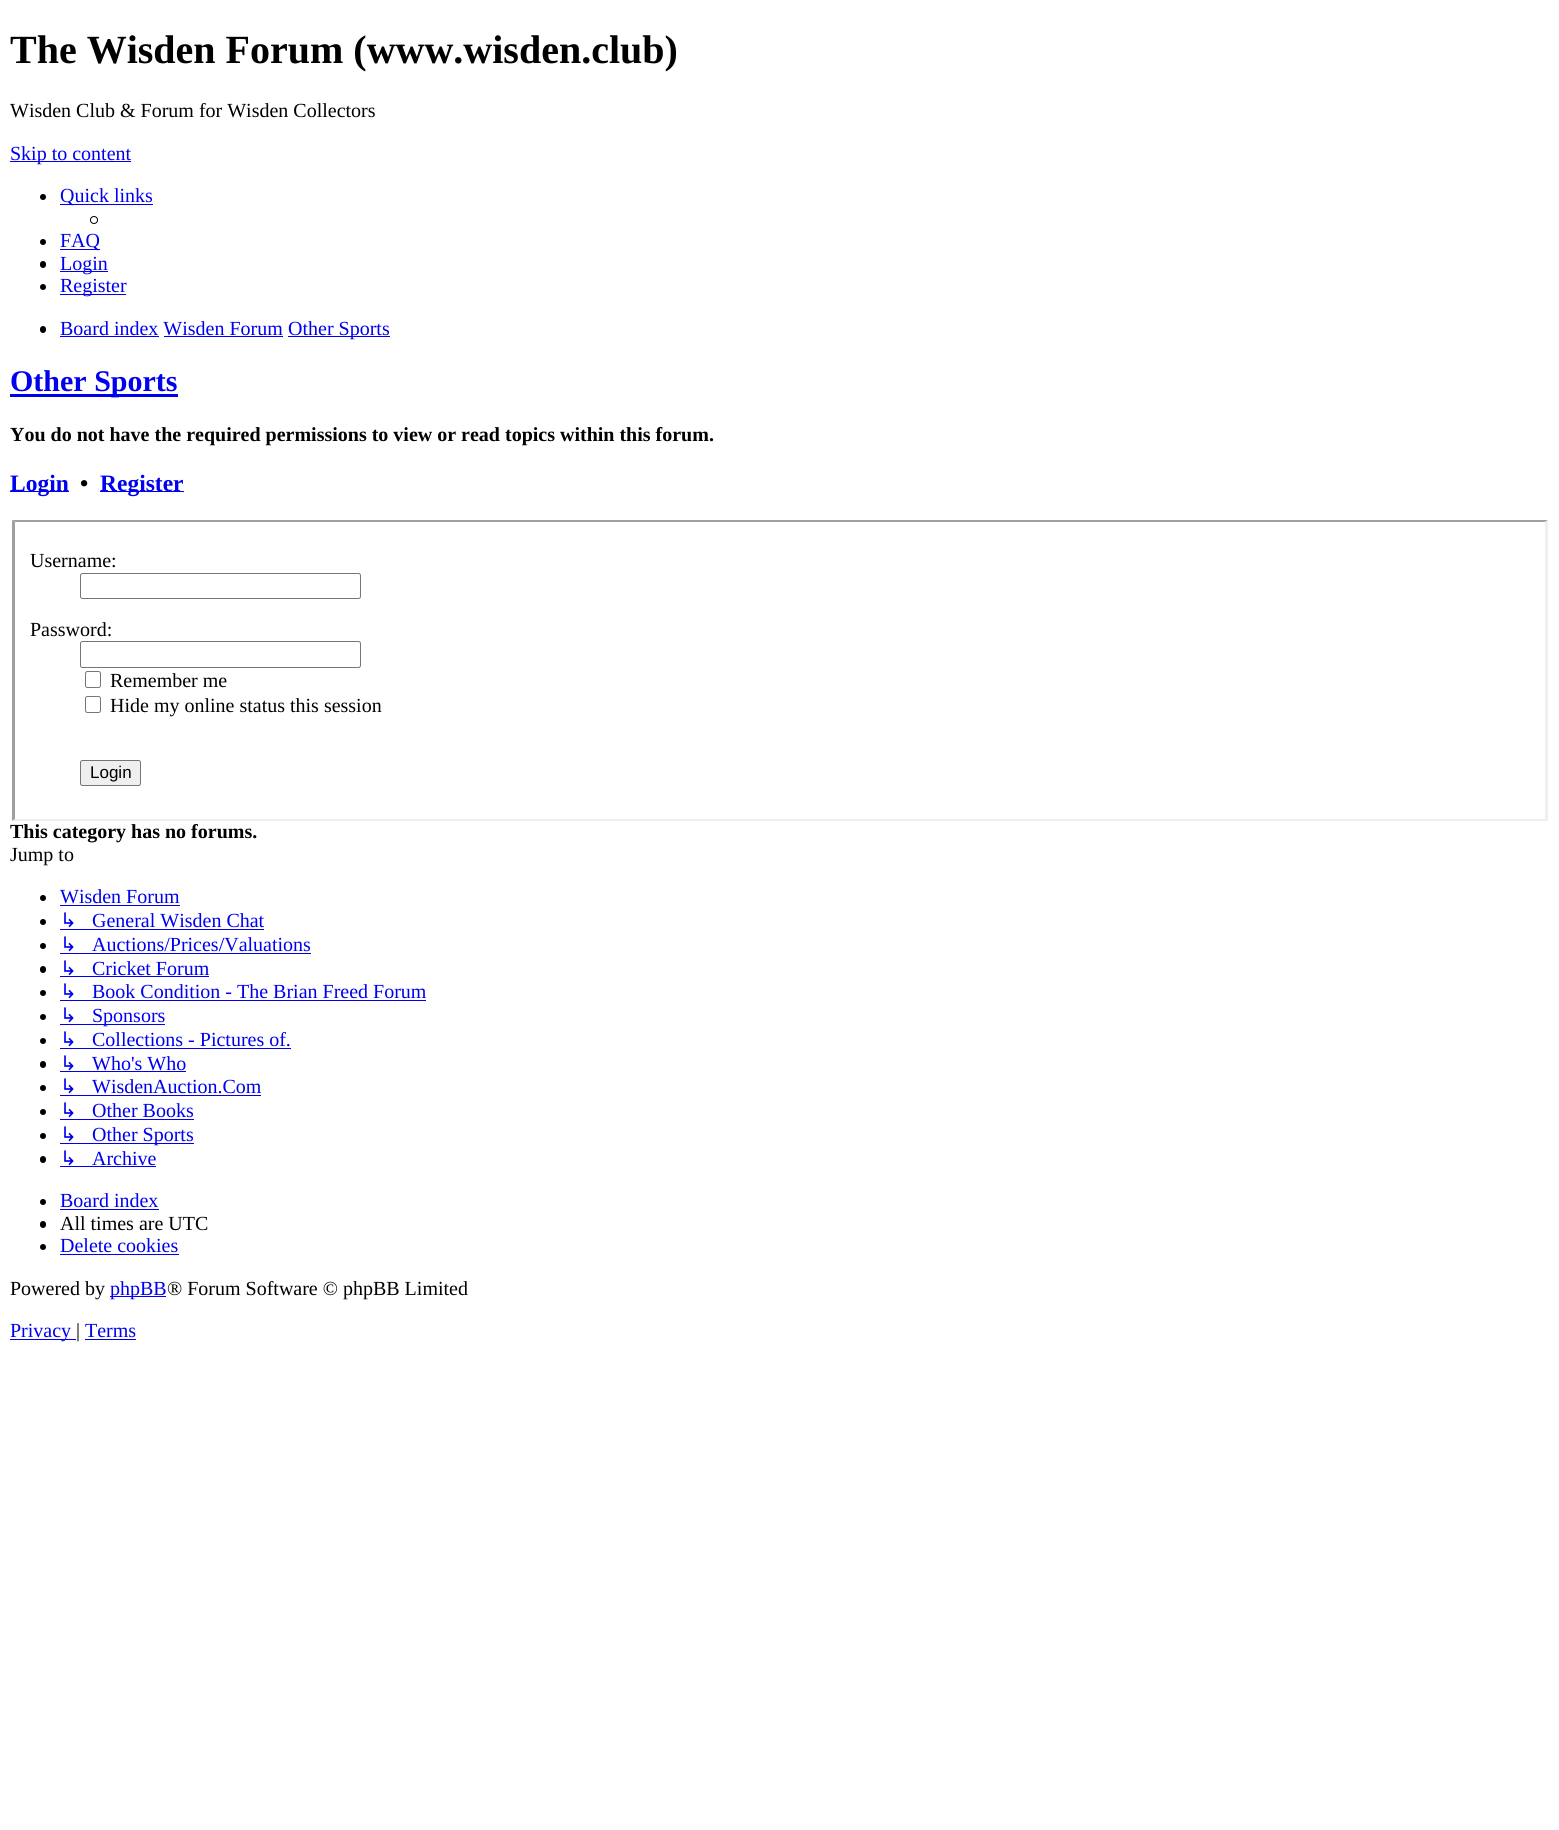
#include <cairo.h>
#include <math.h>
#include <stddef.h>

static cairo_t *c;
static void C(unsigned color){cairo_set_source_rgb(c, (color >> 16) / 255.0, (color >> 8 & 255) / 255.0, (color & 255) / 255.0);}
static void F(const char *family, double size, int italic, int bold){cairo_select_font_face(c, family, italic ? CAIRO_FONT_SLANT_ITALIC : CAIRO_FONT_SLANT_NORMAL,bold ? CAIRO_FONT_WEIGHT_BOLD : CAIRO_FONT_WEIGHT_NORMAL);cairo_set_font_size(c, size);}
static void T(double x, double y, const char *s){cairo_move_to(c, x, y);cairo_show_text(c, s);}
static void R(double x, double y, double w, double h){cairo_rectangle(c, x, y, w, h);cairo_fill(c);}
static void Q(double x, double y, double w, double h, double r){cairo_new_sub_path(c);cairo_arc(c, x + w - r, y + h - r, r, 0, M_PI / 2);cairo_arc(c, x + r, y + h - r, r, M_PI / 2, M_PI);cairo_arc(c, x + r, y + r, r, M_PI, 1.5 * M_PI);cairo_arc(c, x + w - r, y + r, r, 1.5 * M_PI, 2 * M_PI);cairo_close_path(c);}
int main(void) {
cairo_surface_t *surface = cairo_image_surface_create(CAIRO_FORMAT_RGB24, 1559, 1830);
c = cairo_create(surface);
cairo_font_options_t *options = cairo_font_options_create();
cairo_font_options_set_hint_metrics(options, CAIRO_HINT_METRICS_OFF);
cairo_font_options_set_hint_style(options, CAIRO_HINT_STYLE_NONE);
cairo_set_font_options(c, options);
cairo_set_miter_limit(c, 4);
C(0xffffff);
cairo_paint(c);
F("Liberation Serif",40,0,1);
C(0x000000);
T(10,63,"The Wisden Forum (www.wisden.club)");
F("Liberation Serif",20,0,0);
T(10,117,"Wisden Club & Forum for Wisden Collectors");
C(0x0000ee);
R(10,161,121,1);
T(10,160,"Skip to content");
C(0x000000);
cairo_new_path(c);
cairo_arc(c,43,197,3,0,2 * M_PI);
cairo_fill(c);
C(0x0000ee);
R(60,204,93,1);
T(60,202,"Quick links");
cairo_new_path(c);
cairo_arc(c,94,220,3.5,0,2 * M_PI);
C(0x000000);
cairo_set_line_width(c,1);
cairo_stroke(c);
cairo_arc(c,43,242,3,0,2 * M_PI);
cairo_fill(c);
C(0x0000ee);
R(60,249,40,1);
T(60,247,"FAQ");
C(0x000000);
Q(40,261,6,7,3);
cairo_fill(c);
C(0x0000ee);
R(60,271,48,1);
T(60,270,"Login");
C(0x000000);
cairo_new_path(c);
cairo_arc(c,43,287,3,0,2 * M_PI);
cairo_fill(c);
C(0x0000ee);
R(60,294,66,1);
T(60,292,"Register");
C(0x000000);
Q(40,326,6,7,3);
cairo_fill(c);
C(0x0000ee);
T(60,335,"Board index Wisden Forum");
R(60,336,99,1);
R(288,336,102,1);
T(288,335,"Other Sports");
R(164,336,119,1);
R(10,394,168,3);
F("Liberation Serif",30,0,1);
T(10,391,"Other Sports");
F("Liberation Serif",20,0,1);
C(0x000000);
T(10,441,"You do not have the required permissions to view or read topics within this forum.");
C(0x0000ee);
R(10,491,59,1);
F("Liberation Serif",23.5,0,1);
T(10,491,"Login");
C(0x000000);
T(80,491,"•");
C(0x0000ee);
R(100,491,84,1);
T(100,491,"Register");
C(0x9f9f9f);
cairo_new_path(c);
cairo_move_to(c,12,520);
cairo_line_to(c,1548,520);
cairo_line_to(c,1545,522);
cairo_line_to(c,15,522);
cairo_close_path(c);
cairo_fill(c);
C(0xefefef);
cairo_new_path(c);
cairo_move_to(c,1548,520);
cairo_line_to(c,1548,821);
cairo_line_to(c,1545,819);
cairo_line_to(c,1545,522);
cairo_close_path(c);
cairo_fill(c);
cairo_new_path(c);
cairo_move_to(c,1548,821);
cairo_line_to(c,12,821);
cairo_line_to(c,15,819);
cairo_line_to(c,1545,819);
cairo_close_path(c);
cairo_fill(c);
C(0x9f9f9f);
cairo_new_path(c);
cairo_move_to(c,12,821);
cairo_line_to(c,12,520);
cairo_line_to(c,15,522);
cairo_line_to(c,15,819);
cairo_close_path(c);
cairo_fill(c);
F("Liberation Serif",20,0,0);
C(0x000000);
T(30,567,"Username:");
Q(80.5,573.5,280,25,2);
C(0x767676);
cairo_stroke(c);
C(0x000000);
T(30,636,"Password:");
Q(80.5,641.5,280,26,2);
C(0x767676);
cairo_stroke(c);
Q(85.5,671.5,15,16,2);
cairo_stroke(c);
C(0x000000);
T(110,687,"Remember me");
Q(85.5,696.5,15,16,2);
C(0x767676);
cairo_stroke(c);
C(0x000000);
T(110,712,"Hide my online status this session");
C(0xefefef);
Q(80.5,760.5,60,25,2);
cairo_fill_preserve(c);
C(0x767676);
cairo_stroke(c);
F("Liberation Sans",17,0,0);
C(0x000000);
T(90,778,"Login");
F("Liberation Serif",20,0,1);
T(10,838,"This category has no forums.");
F("Liberation Serif",20,0,0);
T(10,861,"Jump to");
cairo_new_path(c);
cairo_arc(c,43,898,3,0,2 * M_PI);
cairo_fill(c);
C(0x0000ee);
T(60,903,"Wisden Forum");
R(60,905,120,1);
C(0x000000);
cairo_new_path(c);
cairo_arc(c,43,922,3,0,2 * M_PI);
cairo_fill(c);
F("DejaVu Sans",20,0,0);
C(0x0000ee);
T(60,927,"↳");
F("Liberation Serif",20,0,0);
T(92,927,"General Wisden Chat");
R(60,929,204,1);
C(0x000000);
cairo_new_path(c);
cairo_arc(c,43,946,3,0,2 * M_PI);
cairo_fill(c);
F("DejaVu Sans",20,0,0);
C(0x0000ee);
T(60,951,"↳");
F("Liberation Serif",20,0,0);
T(92,951,"Auctions/Prices/Valuations");
R(60,953,251,1);
C(0x000000);
Q(40,966,6,7,3);
cairo_fill(c);
F("DejaVu Sans",20,0,0);
C(0x0000ee);
T(60,975,"↳");
F("Liberation Serif",20,0,0);
T(92,975,"Cricket Forum");
R(60,976,149,1);
C(0x000000);
cairo_new_path(c);
cairo_arc(c,43,993,3,0,2 * M_PI);
cairo_fill(c);
F("DejaVu Sans",20,0,0);
C(0x0000ee);
T(60,998,"↳");
F("Liberation Serif",20,0,0);
T(92,998,"Book Condition - The Brian Freed Forum");
R(60,1000,366,1);
C(0x000000);
cairo_new_path(c);
cairo_arc(c,43,1017,3,0,2 * M_PI);
cairo_fill(c);
F("DejaVu Sans",20,0,0);
C(0x0000ee);
T(60,1022,"↳");
R(60,1024,105,1);
F("Liberation Serif",20,0,0);
T(92,1022,"Sponsors");
C(0x000000);
cairo_new_path(c);
cairo_arc(c,43,1041,3,0,2 * M_PI);
cairo_fill(c);
F("DejaVu Sans",20,0,0);
C(0x0000ee);
T(60,1046,"↳");
R(60,1048,231,1);
F("Liberation Serif",20,0,0);
T(92,1046,"Collections - Pictures of.");
C(0x000000);
Q(40,1061,6,7,3);
cairo_fill(c);
F("DejaVu Sans",20,0,0);
C(0x0000ee);
T(60,1070,"↳");
F("Liberation Serif",20,0,0);
T(92,1070,"Who's Who");
R(60,1071,126,1);
C(0x000000);
cairo_new_path(c);
cairo_arc(c,43,1088,3,0,2 * M_PI);
cairo_fill(c);
F("DejaVu Sans",20,0,0);
C(0x0000ee);
T(60,1093,"↳");
F("Liberation Serif",20,0,0);
T(92,1093,"WisdenAuction.Com");
R(60,1095,201,1);
C(0x000000);
cairo_new_path(c);
cairo_arc(c,43,1112,3,0,2 * M_PI);
cairo_fill(c);
F("DejaVu Sans",20,0,0);
C(0x0000ee);
T(60,1117,"↳");
F("Liberation Serif",20,0,0);
T(92,1117,"Other Books");
R(60,1119,134,1);
C(0x000000);
cairo_new_path(c);
cairo_arc(c,43,1136,3,0,2 * M_PI);
cairo_fill(c);
F("DejaVu Sans",20,0,0);
C(0x0000ee);
T(60,1141,"↳");
R(60,1143,134,1);
F("Liberation Serif",20,0,0);
T(92,1141,"Other Sports");
C(0x000000);
Q(40,1156,6,7,3);
cairo_fill(c);
F("DejaVu Sans",20,0,0);
C(0x0000ee);
T(60,1165,"↳");
F("Liberation Serif",20,0,0);
T(92,1165,"Archive");
R(60,1166,96,1);
C(0x000000);
cairo_new_path(c);
cairo_arc(c,43,1202,3,0,2 * M_PI);
cairo_fill(c);
C(0x0000ee);
T(60,1207,"Board index");
R(60,1209,99,1);
C(0x000000);
Q(40,1221,6,7,3);
cairo_fill(c);
T(60,1230,"All times are UTC");
cairo_new_path(c);
cairo_arc(c,43,1247,3,0,2 * M_PI);
cairo_fill(c);
C(0x0000ee);
T(60,1252,"Delete cookies");
R(60,1254,119,1);
C(0x000000);
T(10,1295,"Powered by");
C(0x0000ee);
R(110,1296,56,1);
T(110,1295,"phpBB");
C(0x000000);
T(167,1295,"® Forum Software © phpBB Limited");
C(0x0000ee);
R(10,1339,61,1);
T(10,1337,"Privacy");
R(71,1339,5,1);
C(0x000000);
T(76,1337,"|");
C(0x0000ee);
T(85,1337,"Terms");
R(85,1339,51,1);
cairo_surface_write_to_png(surface, "o.png");
cairo_font_options_destroy(options);
cairo_destroy(c);
cairo_surface_destroy(surface);
return 0;
}
